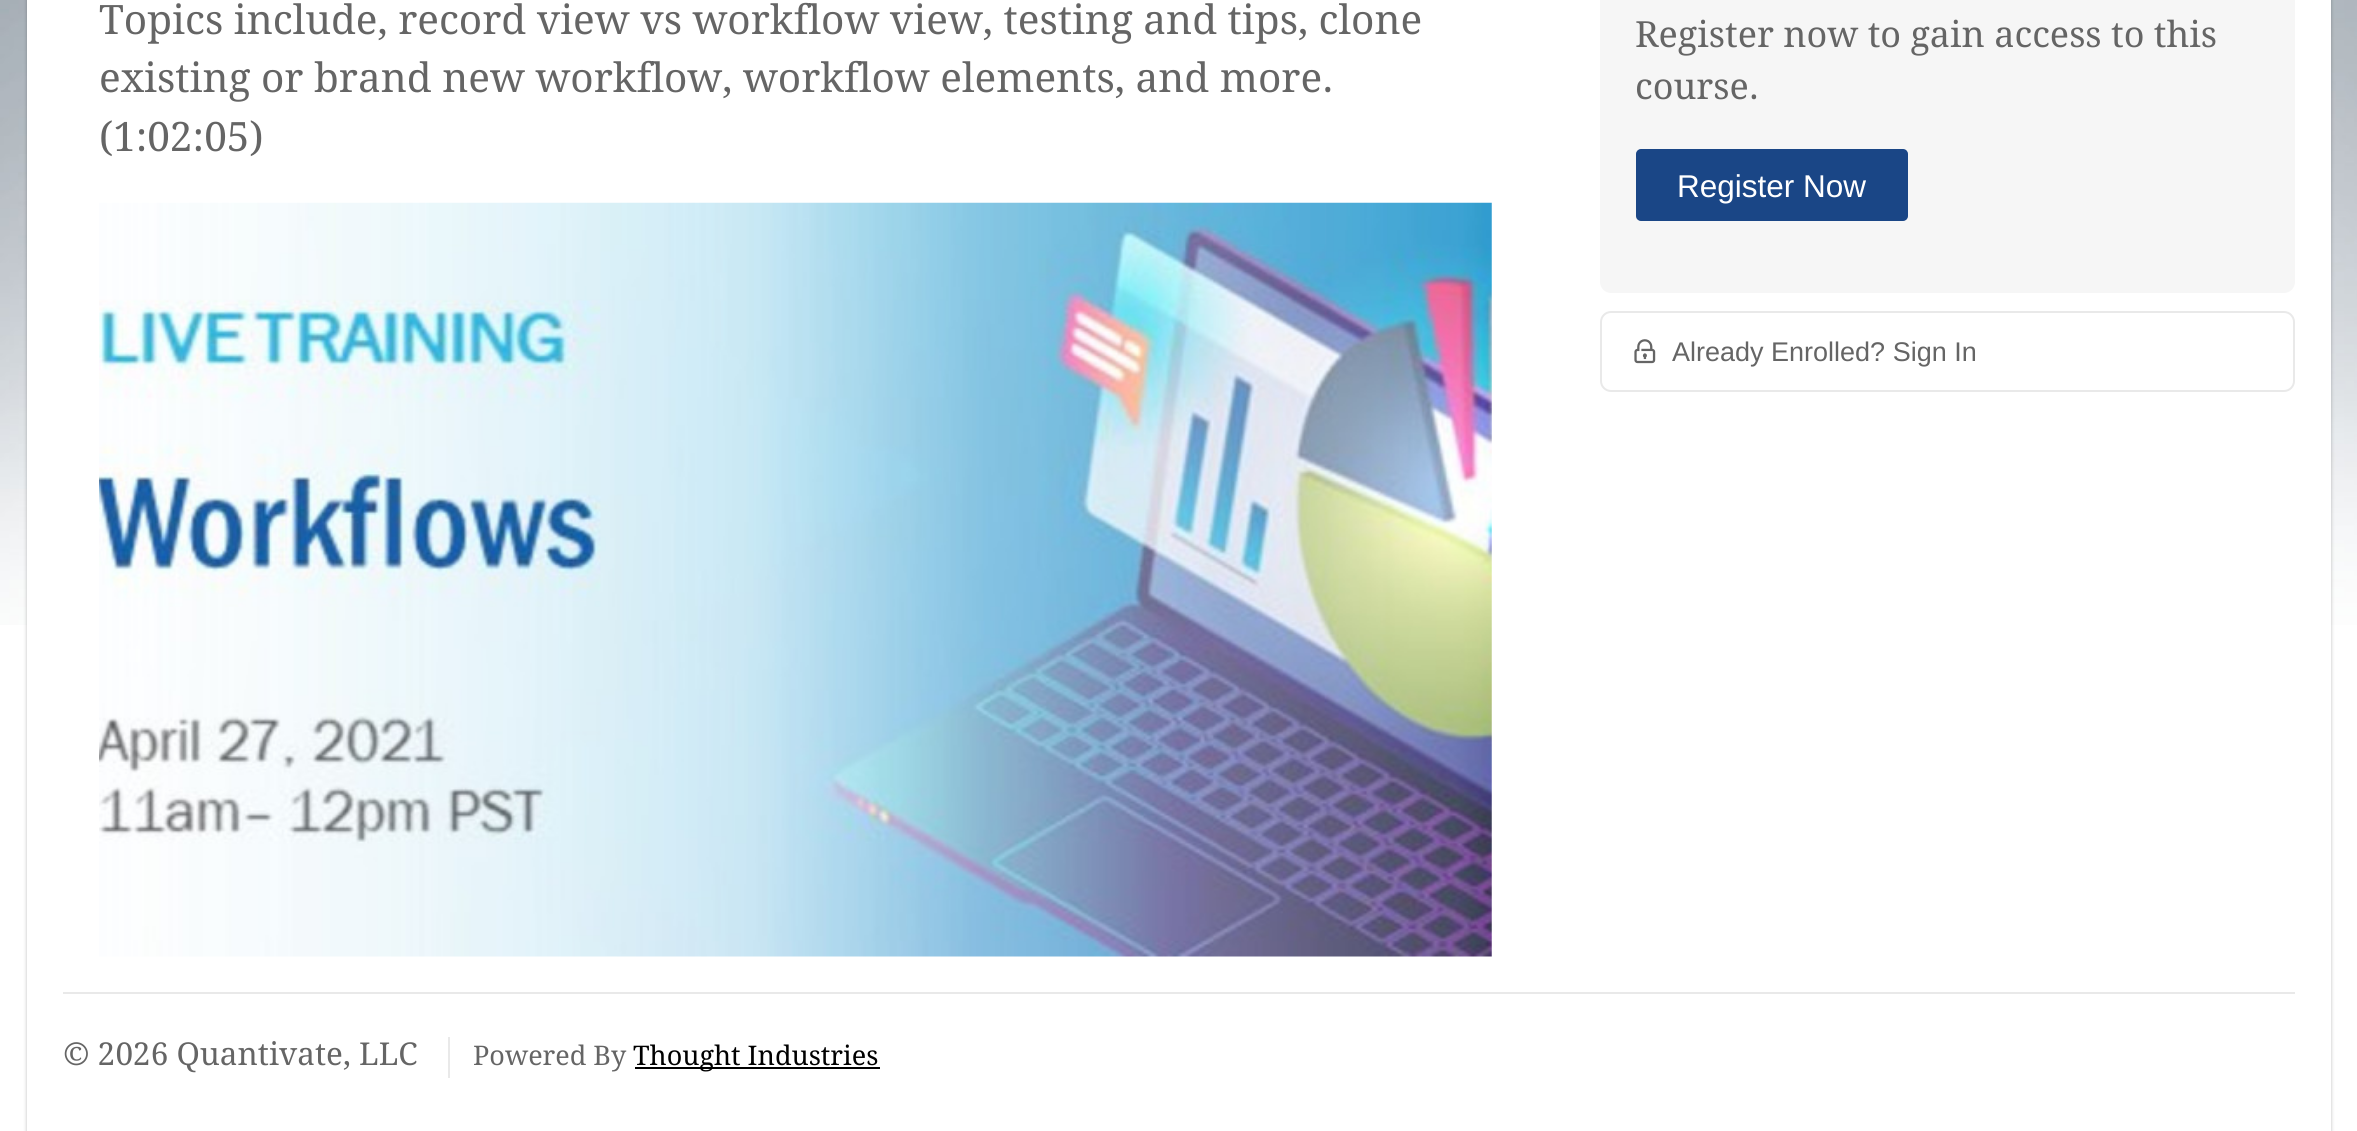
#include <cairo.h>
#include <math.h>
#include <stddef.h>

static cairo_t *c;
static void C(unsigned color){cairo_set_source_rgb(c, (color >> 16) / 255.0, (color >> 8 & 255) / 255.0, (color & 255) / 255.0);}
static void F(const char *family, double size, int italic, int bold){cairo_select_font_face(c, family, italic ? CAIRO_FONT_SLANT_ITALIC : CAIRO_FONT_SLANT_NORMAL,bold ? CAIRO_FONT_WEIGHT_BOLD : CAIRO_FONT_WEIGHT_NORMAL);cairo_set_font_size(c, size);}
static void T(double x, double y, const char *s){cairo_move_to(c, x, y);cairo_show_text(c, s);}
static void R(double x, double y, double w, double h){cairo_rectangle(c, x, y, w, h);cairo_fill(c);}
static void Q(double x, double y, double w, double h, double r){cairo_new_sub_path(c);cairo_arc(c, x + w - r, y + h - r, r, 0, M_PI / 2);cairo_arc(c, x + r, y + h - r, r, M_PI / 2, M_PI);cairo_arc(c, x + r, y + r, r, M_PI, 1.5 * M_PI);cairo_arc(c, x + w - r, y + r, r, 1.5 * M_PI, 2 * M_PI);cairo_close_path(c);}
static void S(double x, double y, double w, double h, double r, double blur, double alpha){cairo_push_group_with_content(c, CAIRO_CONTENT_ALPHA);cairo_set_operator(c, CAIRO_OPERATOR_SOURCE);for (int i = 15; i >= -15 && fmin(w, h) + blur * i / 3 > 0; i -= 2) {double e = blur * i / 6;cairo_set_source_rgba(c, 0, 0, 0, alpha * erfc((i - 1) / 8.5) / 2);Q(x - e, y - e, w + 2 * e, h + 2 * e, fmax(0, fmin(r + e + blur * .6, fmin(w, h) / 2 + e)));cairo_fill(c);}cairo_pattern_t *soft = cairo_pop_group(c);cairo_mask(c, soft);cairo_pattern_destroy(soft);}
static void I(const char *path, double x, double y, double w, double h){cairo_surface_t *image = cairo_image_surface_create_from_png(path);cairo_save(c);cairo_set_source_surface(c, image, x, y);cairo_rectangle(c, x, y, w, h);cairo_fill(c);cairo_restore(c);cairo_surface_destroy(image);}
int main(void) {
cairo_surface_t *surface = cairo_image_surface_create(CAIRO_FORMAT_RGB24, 2357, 1131);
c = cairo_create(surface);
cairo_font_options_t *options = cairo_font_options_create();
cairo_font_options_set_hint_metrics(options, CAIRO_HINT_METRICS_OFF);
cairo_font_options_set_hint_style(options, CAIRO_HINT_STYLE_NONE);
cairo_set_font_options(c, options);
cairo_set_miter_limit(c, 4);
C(0xffffff);
cairo_paint(c);
I("1.png",0,0,2357,625);
C(0x000000);
S(36,-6,2295,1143,0,2,.25);
S(27,-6,2295,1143,0,2,.25);
C(0xffffff);
R(27,0,2304,1131);
F("Droid Serif",40.5,0,0);
C(0x656565);
T(99,34,"Topics include, record view vs workflow view, testing and tips, clone");
T(99,92,"existing or brand new workflow, workflow elements, and more.");
T(99,151,"(1:02:05)");
I("2.png",99,202,1393,755);
C(0xf6f6f6);
Q(1600,-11,695,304,11);
cairo_fill(c);
F("Droid Serif",36,0,0);
C(0x656565);
T(1635,47,"Register now to gain access to this");
T(1635,99,"course.");
C(0x1a4686);
Q(1637,150,270,70,4);
cairo_fill_preserve(c);
cairo_stroke(c);
F("Liberation Sans",31.5,0,0);
C(0xffffff);
T(1677,197,"Register Now");
Q(1601,312,693,79,10);
C(0xe9e9e9);
cairo_stroke(c);
I("3.png",1634,339,22,25);
F("Liberation Sans",27,0,0);
C(0x656565);
T(1672,361,"Already Enrolled? Sign In");
C(0xe9e9e9);
R(63,992,2232,2);
F("Droid Serif",31.5,0,0);
C(0x656565);
T(63,1065,"© 2026 Quantivate, LLC");
C(0xe9e9e9);
R(448,1037,2,41);
F("Droid Serif",27,0,0);
C(0x656565);
T(473,1065,"Powered By");
C(0x000000);
R(635,1067,245,2);
T(633,1065,"Thought Industries");
cairo_surface_write_to_png(surface, "o.png");
cairo_font_options_destroy(options);
cairo_destroy(c);
cairo_surface_destroy(surface);
return 0;
}
